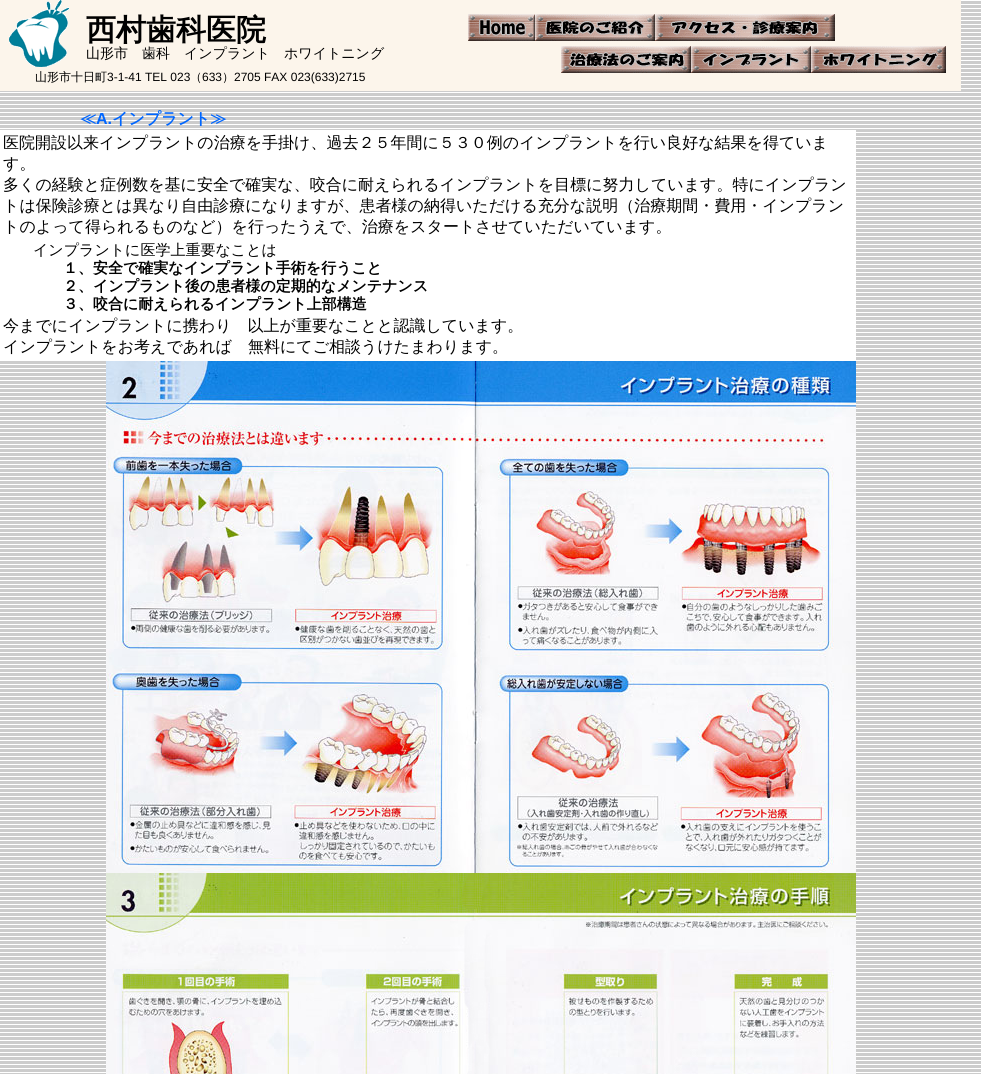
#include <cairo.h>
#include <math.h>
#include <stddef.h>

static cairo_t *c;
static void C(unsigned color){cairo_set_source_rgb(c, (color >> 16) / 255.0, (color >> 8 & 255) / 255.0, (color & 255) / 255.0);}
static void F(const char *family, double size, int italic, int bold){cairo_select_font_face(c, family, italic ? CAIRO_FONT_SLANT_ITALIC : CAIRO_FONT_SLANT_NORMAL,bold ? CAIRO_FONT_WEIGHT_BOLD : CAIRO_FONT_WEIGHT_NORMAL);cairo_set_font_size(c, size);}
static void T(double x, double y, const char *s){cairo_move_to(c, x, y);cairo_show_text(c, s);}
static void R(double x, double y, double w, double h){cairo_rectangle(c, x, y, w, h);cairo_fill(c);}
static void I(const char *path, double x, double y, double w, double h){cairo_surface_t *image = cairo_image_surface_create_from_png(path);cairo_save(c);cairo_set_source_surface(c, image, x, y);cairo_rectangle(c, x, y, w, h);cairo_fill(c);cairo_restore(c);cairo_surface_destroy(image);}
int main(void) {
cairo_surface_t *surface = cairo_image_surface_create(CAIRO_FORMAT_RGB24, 981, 1074);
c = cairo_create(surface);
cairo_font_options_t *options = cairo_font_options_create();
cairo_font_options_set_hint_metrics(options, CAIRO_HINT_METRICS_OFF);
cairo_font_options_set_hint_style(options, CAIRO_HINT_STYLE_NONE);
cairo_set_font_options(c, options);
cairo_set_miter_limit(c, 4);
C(0xffffff);
cairo_paint(c);
I("1.png",0,0,981,1074);
C(0xfcf5eb);
R(0,0,961,91);
I("2.png",9,0,60,67);
F("WenQuanYi Zen Hei",30,0,1);
C(0x000000);
T(86,40,"西村歯科医院");
F("WenQuanYi Zen Hei Medium",14,0,0);
T(86,58,"山形市　歯科　インプラント　ホワイトニング");
F("WenQuanYi Zen Hei Medium",12,0,0);
T(35,81,"山形市十日町");
F("Liberation Sans",12,0,0);
T(107,81,"3-1-41 TEL 023");
F("WenQuanYi Zen Hei Medium",12,0,0);
T(190,81,"（");
F("Liberation Sans",12,0,0);
T(202,81,"633");
F("WenQuanYi Zen Hei Medium",12,0,0);
T(222,81,"）");
F("Liberation Sans",12,0,0);
T(234,81,"2705 FAX 023(633)2715");
I("3.png",468,14,67,27);
I("4.png",535,14,120,27);
I("5.png",655,14,180,27);
I("6.png",561,46,130,27);
I("7.png",691,46,120,27);
I("8.png",811,46,135,27);
F("WenQuanYi Zen Hei",16,0,1);
C(0x0066ff);
T(80,124,"≪");
F("Liberation Sans",16,0,1);
T(96,124,"A.");
F("WenQuanYi Zen Hei",16,0,1);
T(112,124,"インプラント≫");
C(0xffffff);
R(0,130,856,230);
F("WenQuanYi Zen Hei Medium",16,0,0);
C(0x000000);
T(3,148,"医院開設以来インプラントの治療を手掛け、過去２５年間に５３０例のインプラントを行い良好な結果を得ていま");
T(3,169,"す。");
T(3,190,"多くの経験と症例数を基に安全で確実な、咬合に耐えられるインプラントを目標に努力しています。特にインプラン");
T(3,211,"トは保険診療とは異なり自由診療になりますが、患者様の納得いただける充分な説明（治療期間・費用・インプラン");
T(3,232,"トのよって得られるものなど）を行ったうえで、治療をスタートさせていただいています。");
F("WenQuanYi Zen Hei Medium",15,0,0);
T(33,255,"インプラントに医学上重要なことは");
F("WenQuanYi Zen Hei",15,0,1);
T(63,273,"１、安全で確実なインプラント手術を行うこと");
T(63,291,"２、インプラント後の患者様の定期的なメンテナンス");
T(63,309,"３、咬合に耐えられるインプラント上部構造");
F("WenQuanYi Zen Hei Medium",16,0,0);
T(3,331,"今までにインプラントに携わり　以上が重要なことと認識しています。");
T(3,352,"インプラントをお考えであれば　無料にてご相談うけたまわります。");
I("9.png",106,361,750,512);
I("10.png",106,873,750,201);
cairo_surface_write_to_png(surface, "o.png");
cairo_font_options_destroy(options);
cairo_destroy(c);
cairo_surface_destroy(surface);
return 0;
}
